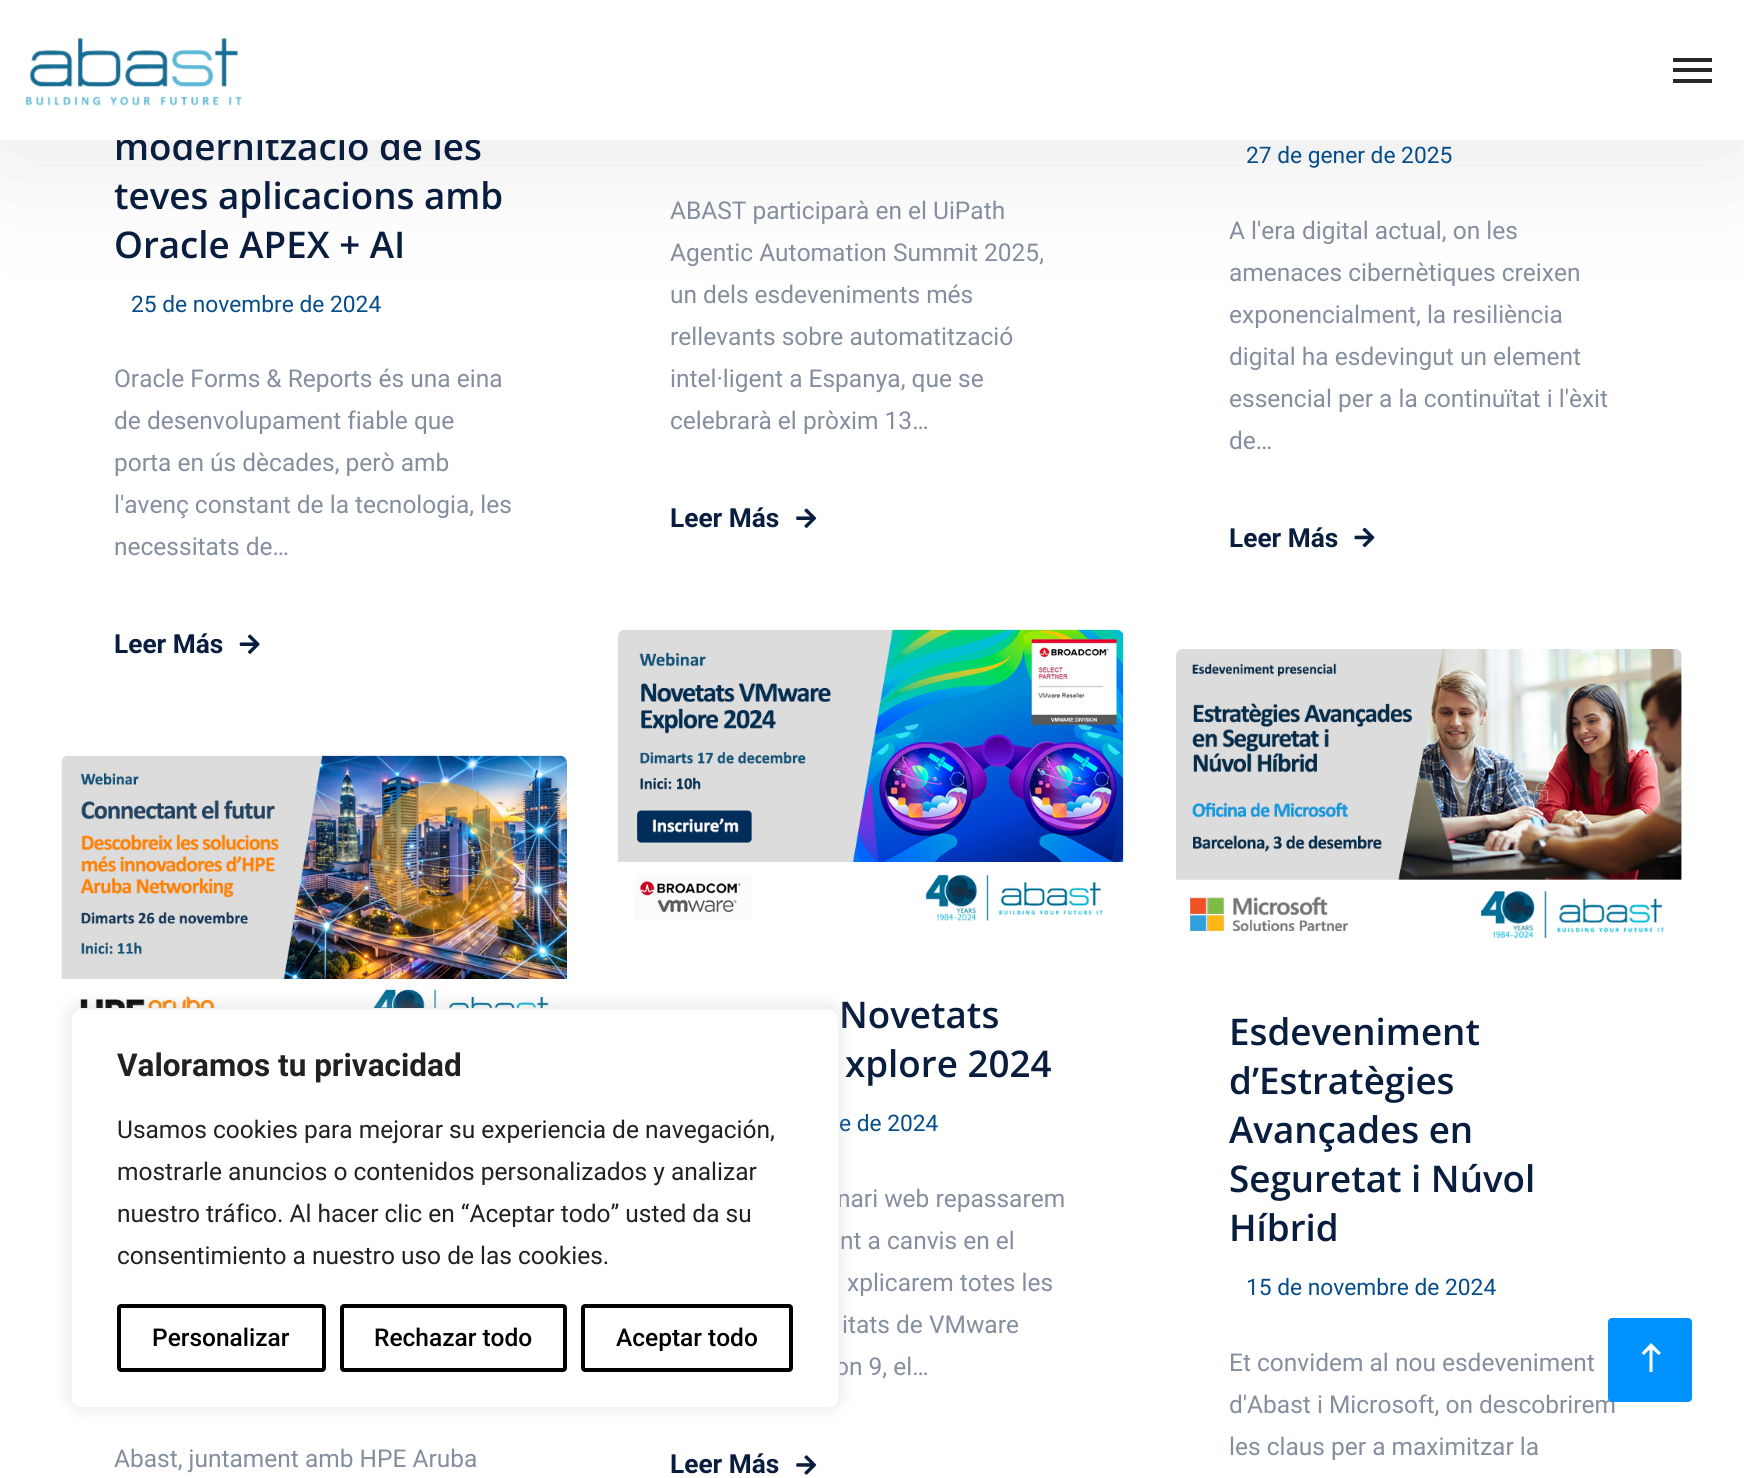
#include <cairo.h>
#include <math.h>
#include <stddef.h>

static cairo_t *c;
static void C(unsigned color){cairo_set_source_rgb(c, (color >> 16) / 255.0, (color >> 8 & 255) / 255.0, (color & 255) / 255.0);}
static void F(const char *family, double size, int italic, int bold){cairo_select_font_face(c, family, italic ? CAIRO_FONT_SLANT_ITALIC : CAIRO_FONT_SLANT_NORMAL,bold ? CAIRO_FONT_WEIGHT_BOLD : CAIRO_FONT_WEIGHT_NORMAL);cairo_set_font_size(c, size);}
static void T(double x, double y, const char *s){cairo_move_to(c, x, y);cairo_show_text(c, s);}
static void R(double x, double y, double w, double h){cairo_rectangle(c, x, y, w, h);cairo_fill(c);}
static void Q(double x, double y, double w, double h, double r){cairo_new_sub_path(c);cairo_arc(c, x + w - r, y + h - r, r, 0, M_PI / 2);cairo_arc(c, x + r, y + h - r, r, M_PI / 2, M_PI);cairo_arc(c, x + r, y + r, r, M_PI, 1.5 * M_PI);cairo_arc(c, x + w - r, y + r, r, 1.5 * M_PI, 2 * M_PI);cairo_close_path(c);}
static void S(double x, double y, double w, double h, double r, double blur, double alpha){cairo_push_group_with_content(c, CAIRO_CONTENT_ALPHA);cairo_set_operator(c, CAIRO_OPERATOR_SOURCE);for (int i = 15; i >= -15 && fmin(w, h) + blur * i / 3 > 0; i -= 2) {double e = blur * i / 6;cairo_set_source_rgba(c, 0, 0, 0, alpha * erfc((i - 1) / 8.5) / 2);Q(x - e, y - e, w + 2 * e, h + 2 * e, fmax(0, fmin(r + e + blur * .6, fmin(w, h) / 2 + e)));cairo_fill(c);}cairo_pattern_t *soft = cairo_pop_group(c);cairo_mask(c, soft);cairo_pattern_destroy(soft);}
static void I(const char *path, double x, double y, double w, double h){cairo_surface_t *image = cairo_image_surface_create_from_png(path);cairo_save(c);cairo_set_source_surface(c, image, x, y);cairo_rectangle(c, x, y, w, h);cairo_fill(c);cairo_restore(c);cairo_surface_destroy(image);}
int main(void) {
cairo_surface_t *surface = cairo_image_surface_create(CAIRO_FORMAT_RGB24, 1744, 1478);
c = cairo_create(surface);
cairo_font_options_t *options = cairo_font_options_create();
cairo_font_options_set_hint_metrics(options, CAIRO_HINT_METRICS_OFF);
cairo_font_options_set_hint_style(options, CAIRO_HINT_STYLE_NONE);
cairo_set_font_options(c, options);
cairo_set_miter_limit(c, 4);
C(0xffffff);
cairo_paint(c);
C(0x282828);
S(0,9,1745,140,0,72.5,.12);
F("Open Sans SemiBold",36.75,0,0);
C(0x091d3e);
T(114,160,"modernització de les");
C(0xffffff);
R(0,0,1744,140);
I("1.png",26,38,217,68);
C(0x282828);
R(1673,58,39,4);
R(1673,68,39,4);
R(1673,79,39,4);
C(0x091d3e);
T(114,209,"teves aplicacions amb");
T(114,258,"Oracle APEX + AI");
F("Roboto",22.75,0,0);
C(0x054c8b);
T(131,312,"25 de novembre de 2024");
F("Roboto",24.5,0,0);
C(0x848e9f);
T(114,387,"Oracle Forms & Reports és una eina");
T(114,429,"de desenvolupament fiable que");
T(114,471,"porta en ús dècades, però amb");
T(114,513,"l'avenç constant de la tecnologia, les");
T(114,555,"necessitats de…");
F("Roboto",26.25,0,1);
C(0x091d3e);
T(114,653,"Leer Más");
I("2.png",239,634,21,20);
F("Roboto",24.5,0,0);
C(0x848e9f);
T(670,219,"ABAST participarà en el UiPath");
T(670,261,"Agentic Automation Summit 2025,");
T(670,303,"un dels esdeveniments més");
T(670,345,"rellevants sobre automatització");
T(670,387,"intel·ligent a Espanya, que se");
T(670,429,"celebrarà el pròxim 13…");
F("Roboto",26.25,0,1);
C(0x091d3e);
T(670,527,"Leer Más");
I("3.png",796,508,21,20);
F("Roboto",22.75,0,0);
C(0x054c8b);
T(1246,163,"27 de gener de 2025");
F("Roboto",24.5,0,0);
C(0x848e9f);
T(1229,239,"A l'era digital actual, on les");
T(1229,281,"amenaces cibernètiques creixen");
T(1229,323,"exponencialment, la resiliència");
T(1229,365,"digital ha esdevingut un element");
T(1229,407,"essencial per a la continuïtat i l'èxit");
T(1229,449,"de…");
F("Roboto",26.25,0,1);
C(0x091d3e);
T(1229,547,"Leer Más");
I("4.png",1354,527,21,21);
I("5.png",61,755,506,281);
F("Roboto",24.5,0,0);
C(0x848e9f);
T(114,1467,"Abast, juntament amb HPE Aruba");
I("6.png",618,629,506,292);
F("Open Sans SemiBold",36.75,0,0);
C(0x091d3e);
T(839,1028,"Novetats");
T(845,1077,"xplore 2024");
F("Roboto",22.75,0,0);
C(0x054c8b);
T(839,1131,"e de 2024");
F("Roboto",24.5,0,0);
C(0x848e9f);
T(837,1207,"nari web repassarem");
T(840,1249,"nt a canvis en el");
T(847,1291,"xplicarem totes les");
T(842,1333,"itats de VMware");
T(835,1375,"on 9, el…");
F("Roboto",26.25,0,1);
C(0x091d3e);
T(670,1473,"Leer Más");
I("7.png",796,1455,21,20);
I("8.png",1176,649,506,289);
F("Open Sans SemiBold",36.75,0,0);
T(1229,1045,"Esdeveniment");
T(1229,1094,"d’Estratègies");
T(1229,1143,"Avançades en");
T(1229,1192,"Seguretat i Núvol");
T(1229,1241,"Híbrid");
F("Roboto",22.75,0,0);
C(0x054c8b);
T(1246,1295,"15 de novembre de 2024");
F("Roboto",24.5,0,0);
C(0x848e9f);
T(1229,1371,"Et convidem al nou esdeveniment");
T(1229,1413,"d'Abast i Microsoft, on descobrirem");
T(1229,1455,"les claus per a maximitzar la");
C(0x0092ff);
Q(1608,1318,84,84,4);
cairo_fill(c);
C(0xffffff);
cairo_new_path(c);
cairo_move_to(c,1649.5,1372);
cairo_line_to(c,1649.5,1349.5);
cairo_line_to(c,1644,1355);
cairo_line_to(c,1641.5,1353);
cairo_line_to(c,1651,1343);
cairo_line_to(c,1661,1353);
cairo_line_to(c,1658.5,1355);
cairo_line_to(c,1652.5,1349.5);
cairo_line_to(c,1652.5,1372);
cairo_close_path(c);
cairo_fill(c);
C(0xacabab);
S(70,1006,770,401,11,9,.3);
C(0xffffff);
Q(71,1009,768,399,10);
cairo_fill_preserve(c);
C(0xf4f4f4);
cairo_stroke(c);
F("Roboto",31.5,0,1);
C(0x212121);
T(117,1076,"Valoramos tu privacidad");
F("Roboto",24.5,0,0);
T(117,1138,"Usamos cookies para mejorar su experiencia de navegación,");
T(117,1180,"mostrarle anuncios o contenidos personalizados y analizar");
T(117,1222,"nuestro tráfico. Al hacer clic en “Aceptar todo” usted da su");
T(117,1264,"consentimiento a nuestro uso de las cookies.");
Q(119,1306,205,64,2);
C(0x000000);
cairo_set_line_width(c,4);
cairo_stroke(c);
F("Roboto Medium",24.5,0,0);
T(152,1346,"Personalizar");
Q(342,1306,223,64,2);
cairo_stroke(c);
T(374,1346,"Rechazar todo");
Q(583,1306,208,64,2);
cairo_stroke(c);
T(616,1346,"Aceptar todo");
cairo_surface_write_to_png(surface, "o.png");
cairo_font_options_destroy(options);
cairo_destroy(c);
cairo_surface_destroy(surface);
return 0;
}
